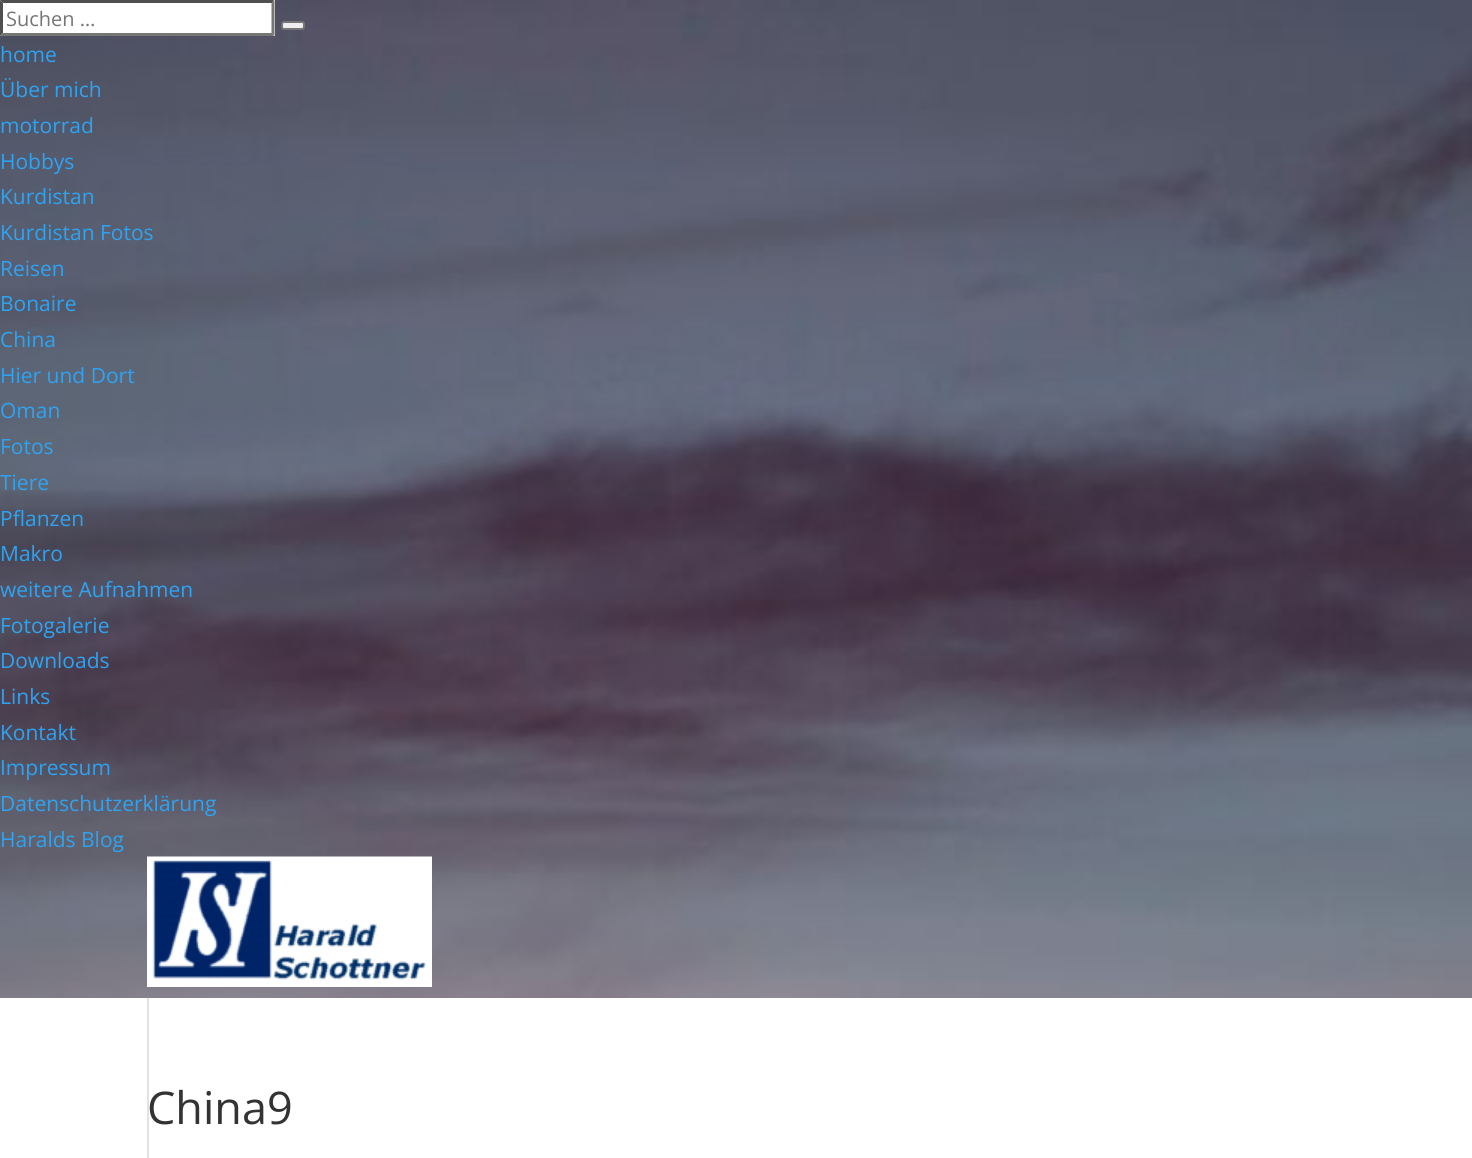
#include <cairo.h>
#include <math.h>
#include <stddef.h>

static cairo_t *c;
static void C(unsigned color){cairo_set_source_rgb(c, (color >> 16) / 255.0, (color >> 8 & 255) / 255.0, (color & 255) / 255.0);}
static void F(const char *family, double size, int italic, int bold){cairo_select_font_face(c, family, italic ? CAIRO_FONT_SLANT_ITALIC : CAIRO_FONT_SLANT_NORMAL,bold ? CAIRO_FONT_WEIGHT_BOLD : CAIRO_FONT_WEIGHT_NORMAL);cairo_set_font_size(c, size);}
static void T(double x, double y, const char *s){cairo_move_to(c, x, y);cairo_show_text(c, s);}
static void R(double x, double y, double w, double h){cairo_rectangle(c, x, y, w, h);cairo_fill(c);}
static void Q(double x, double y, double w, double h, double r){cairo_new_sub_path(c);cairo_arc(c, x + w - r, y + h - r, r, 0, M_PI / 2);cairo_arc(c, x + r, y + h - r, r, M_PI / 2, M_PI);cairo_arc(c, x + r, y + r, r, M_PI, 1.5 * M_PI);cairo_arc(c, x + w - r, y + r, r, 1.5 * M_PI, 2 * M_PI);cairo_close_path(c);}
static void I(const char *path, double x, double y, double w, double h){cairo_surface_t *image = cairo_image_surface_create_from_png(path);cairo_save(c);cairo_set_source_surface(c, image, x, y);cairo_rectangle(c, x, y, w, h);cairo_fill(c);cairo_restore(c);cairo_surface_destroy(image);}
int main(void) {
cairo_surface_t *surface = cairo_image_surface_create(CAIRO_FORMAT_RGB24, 1472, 1158);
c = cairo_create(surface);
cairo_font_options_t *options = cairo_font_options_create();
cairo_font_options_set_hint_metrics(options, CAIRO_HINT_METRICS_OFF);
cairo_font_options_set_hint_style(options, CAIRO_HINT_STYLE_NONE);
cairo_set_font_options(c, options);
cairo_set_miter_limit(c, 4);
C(0xffffff);
cairo_paint(c);
I("1.png",0,0,1472,998);
C(0xffffff);
R(0,0,275,36);
C(0x4f4f4f);
cairo_new_path(c);
cairo_move_to(c,0,0);
cairo_line_to(c,274,0);
cairo_line_to(c,272,3);
cairo_line_to(c,3,3);
cairo_close_path(c);
cairo_fill(c);
C(0x767676);
cairo_new_path(c);
cairo_move_to(c,274.5,0);
cairo_line_to(c,274.5,36);
cairo_line_to(c,271.5,33);
cairo_line_to(c,271.5,3);
cairo_close_path(c);
cairo_fill(c);
cairo_new_path(c);
cairo_move_to(c,274,36);
cairo_line_to(c,0,36);
cairo_line_to(c,3,33);
cairo_line_to(c,272,33);
cairo_close_path(c);
cairo_fill(c);
C(0x4f4f4f);
cairo_new_path(c);
cairo_move_to(c,0,36);
cairo_line_to(c,0,0);
cairo_line_to(c,3,3);
cairo_line_to(c,3,33);
cairo_close_path(c);
cairo_fill(c);
F("Open Sans",20,0,0);
C(0x757575);
T(6,26,"Suchen …");
C(0xefefef);
Q(282,22,22,7,2);
cairo_fill_preserve(c);
C(0x767676);
cairo_stroke(c);
F("Open Sans",21,0,0);
C(0x2ea3f2);
T(0,62,"home");
T(0,97,"Über mich");
T(0,133,"motorrad");
T(0,169,"Hobbys");
T(0,204,"Kurdistan");
T(0,240,"Kurdistan Fotos");
T(0,276,"Reisen");
T(0,311,"Bonaire");
T(0,347,"China");
T(0,383,"Hier und Dort");
T(0,418,"Oman");
T(0,454,"Fotos");
T(0,490,"Tiere");
T(0,526,"Pflanzen");
T(0,561,"Makro");
T(0,597,"weitere Aufnahmen");
T(0,633,"Fotogalerie");
T(0,668,"Downloads");
T(0,704,"Links");
T(0,740,"Kontakt");
T(0,775,"Impressum");
T(0,811,"Datenschutzerklärung");
T(0,847,"Haralds Blog");
I("2.png",147,856,285,131);
C(0xe2e2e2);
R(147,998,2,160);
F("Open Sans",45,0,0);
C(0x333333);
T(147,1124,"China9");
cairo_surface_write_to_png(surface, "o.png");
cairo_font_options_destroy(options);
cairo_destroy(c);
cairo_surface_destroy(surface);
return 0;
}
